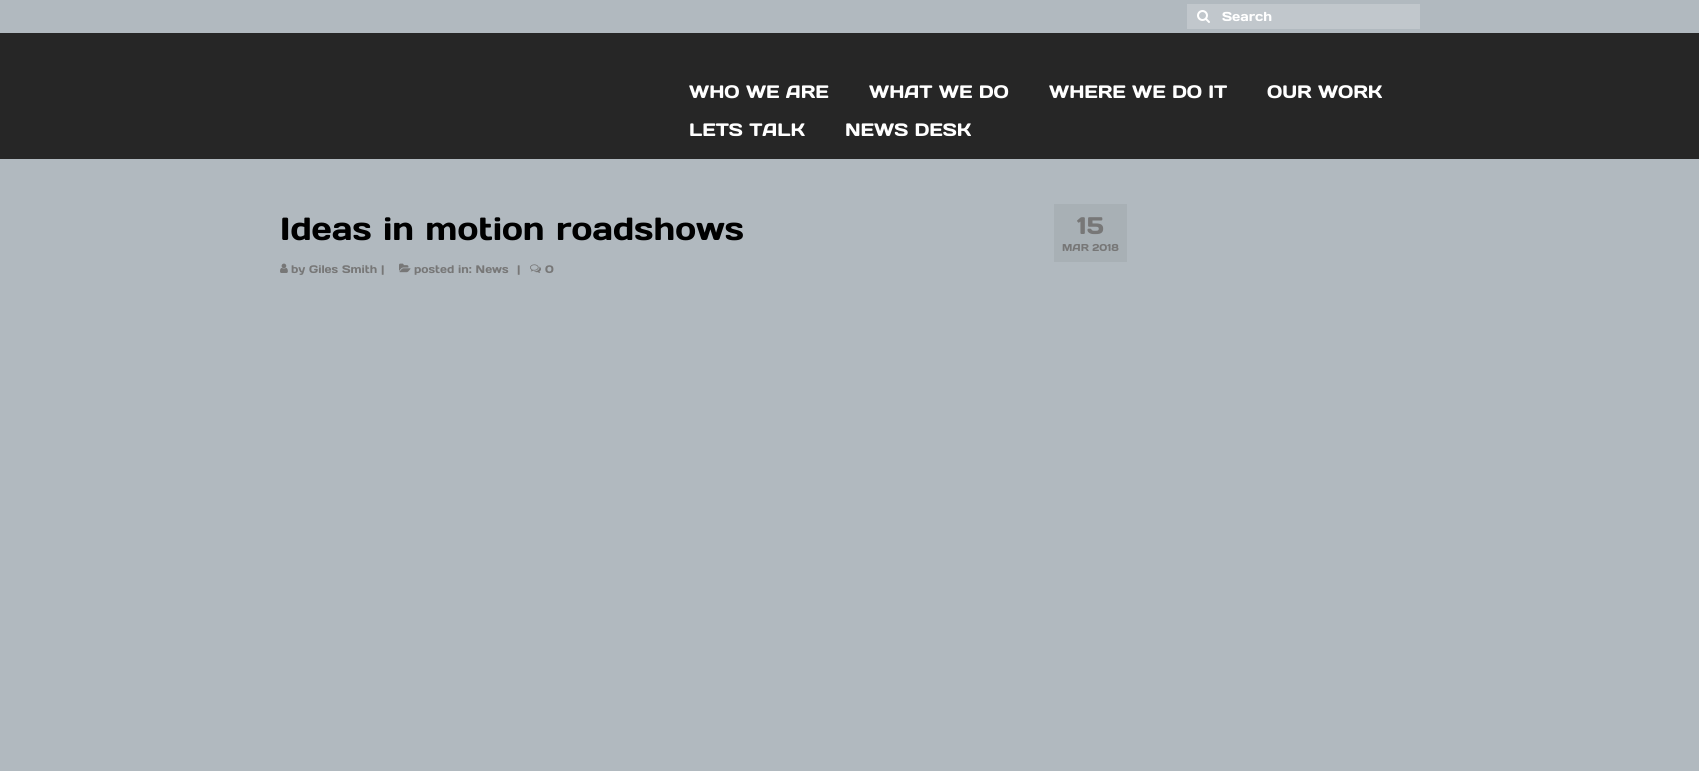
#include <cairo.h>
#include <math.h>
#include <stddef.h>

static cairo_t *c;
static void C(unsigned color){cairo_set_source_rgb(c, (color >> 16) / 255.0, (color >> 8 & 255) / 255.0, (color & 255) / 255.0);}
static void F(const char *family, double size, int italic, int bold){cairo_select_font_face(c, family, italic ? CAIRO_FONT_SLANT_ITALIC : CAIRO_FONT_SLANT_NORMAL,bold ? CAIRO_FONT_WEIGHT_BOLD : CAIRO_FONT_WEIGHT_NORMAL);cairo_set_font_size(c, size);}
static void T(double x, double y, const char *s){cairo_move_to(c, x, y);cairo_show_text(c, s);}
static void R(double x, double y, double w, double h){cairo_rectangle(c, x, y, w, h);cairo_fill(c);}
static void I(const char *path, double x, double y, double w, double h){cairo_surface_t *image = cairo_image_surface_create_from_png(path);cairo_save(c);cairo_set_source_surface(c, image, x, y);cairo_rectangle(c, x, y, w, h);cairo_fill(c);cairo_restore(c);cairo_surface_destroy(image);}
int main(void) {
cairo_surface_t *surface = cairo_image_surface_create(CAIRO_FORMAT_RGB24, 1699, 771);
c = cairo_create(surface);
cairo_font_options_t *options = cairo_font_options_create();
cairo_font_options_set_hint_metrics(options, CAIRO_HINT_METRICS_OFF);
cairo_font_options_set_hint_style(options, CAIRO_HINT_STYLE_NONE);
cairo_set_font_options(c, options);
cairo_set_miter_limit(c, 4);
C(0x262626);
cairo_paint(c);
C(0xb1b9bf);
R(0,0,1699,33);
C(0xc1c7cc);
R(1187,4,233,25);
I("1.png",1197,10,13,13);
F("Days One",13,0,0);
C(0xffffff);
T(1222,21,"Search");
F("Days One",18,0,0);
T(689,98,"WHO WE ARE");
T(869,98,"WHAT WE DO");
T(1049,98,"WHERE WE DO IT");
T(1267,98,"OUR WORK");
T(689,136,"LETS TALK");
T(845,136,"NEWS DESK");
C(0xb1b9bf);
R(0,159,1699,612);
F("Days One",32,0,0);
C(0x000000);
T(280,240,"Ideas in motion roadshows");
I("2.png",280,263,8,10);
F("Days One",11,0,0);
C(0x777777);
T(291,273,"by Giles Smith |");
I("3.png",399,263,12,10);
T(414,273,"posted in: News");
T(517,273,"|");
I("4.png",530,264,11,9);
T(545,273,"0");
C(0xa8b0b5);
R(1054,204,73,58);
F("Days One",24,0,0);
C(0x777777);
T(1077,234,"15");
F("Days One",10,0,0);
T(1062,251,"MAR 2018");
cairo_surface_write_to_png(surface, "o.png");
cairo_font_options_destroy(options);
cairo_destroy(c);
cairo_surface_destroy(surface);
return 0;
}
